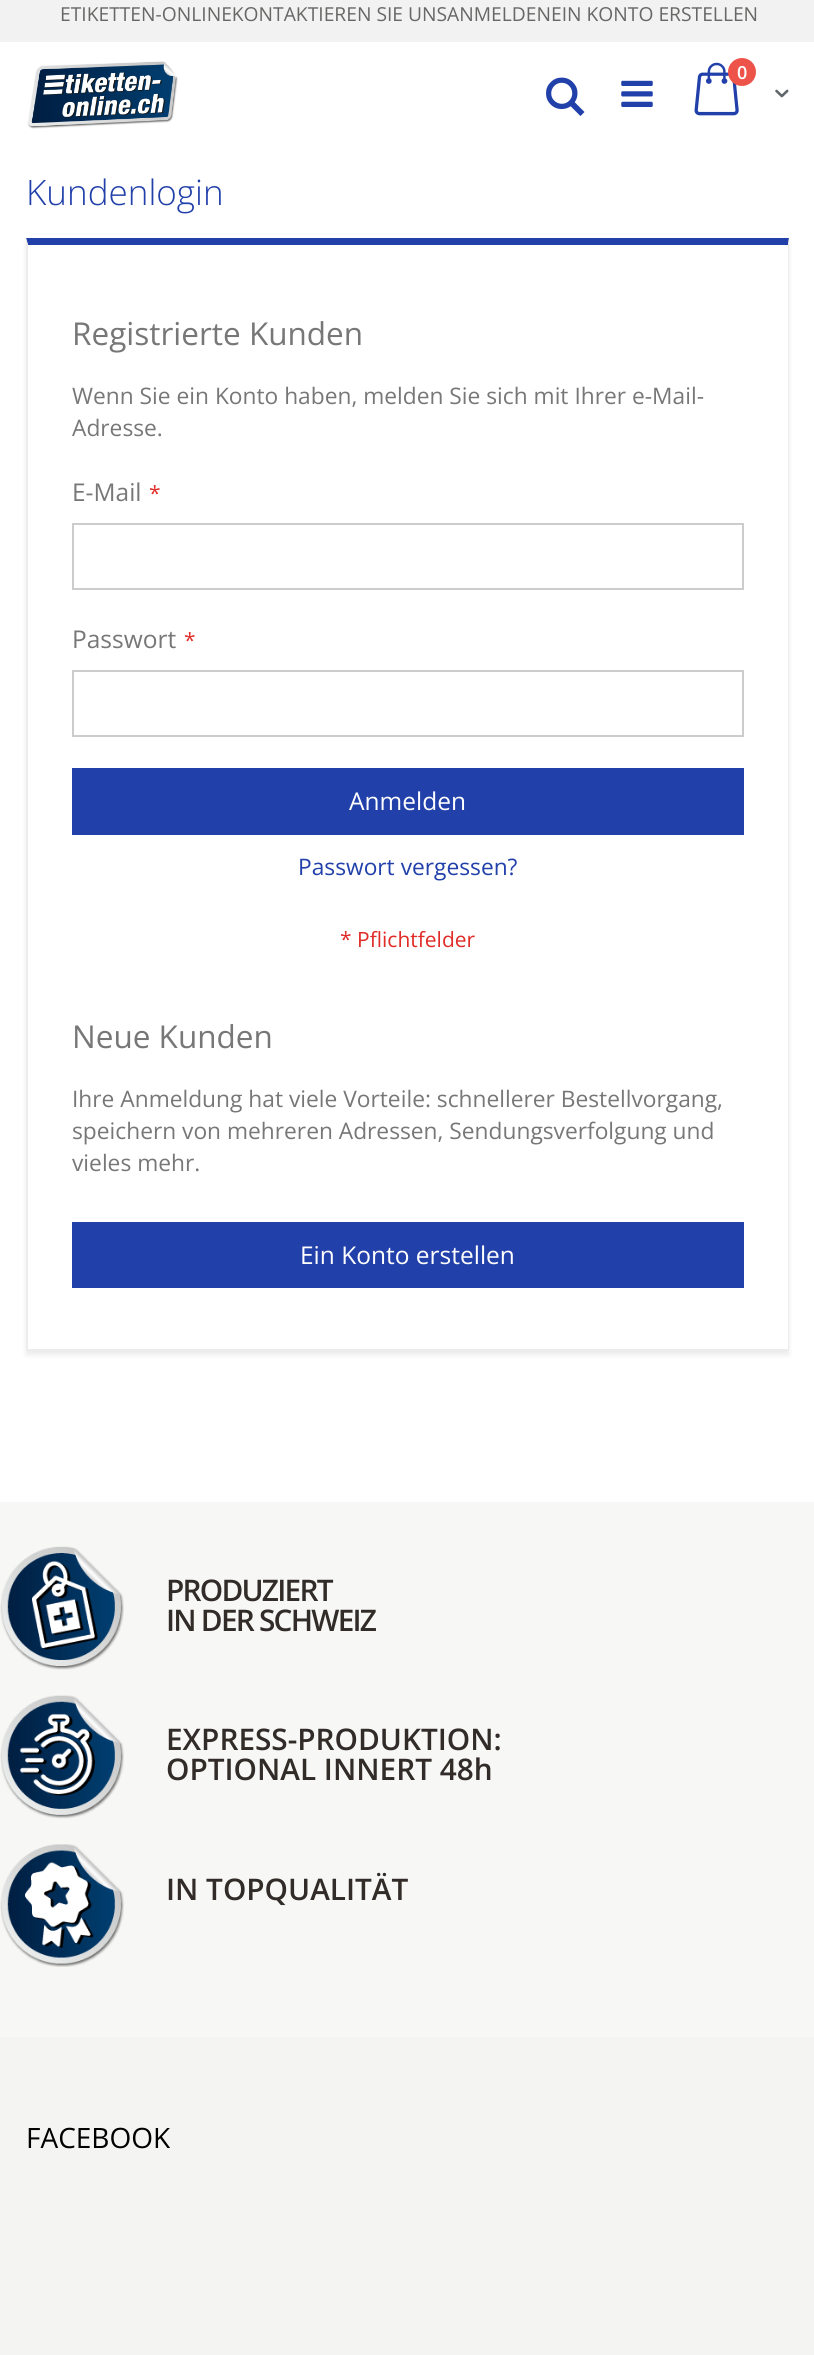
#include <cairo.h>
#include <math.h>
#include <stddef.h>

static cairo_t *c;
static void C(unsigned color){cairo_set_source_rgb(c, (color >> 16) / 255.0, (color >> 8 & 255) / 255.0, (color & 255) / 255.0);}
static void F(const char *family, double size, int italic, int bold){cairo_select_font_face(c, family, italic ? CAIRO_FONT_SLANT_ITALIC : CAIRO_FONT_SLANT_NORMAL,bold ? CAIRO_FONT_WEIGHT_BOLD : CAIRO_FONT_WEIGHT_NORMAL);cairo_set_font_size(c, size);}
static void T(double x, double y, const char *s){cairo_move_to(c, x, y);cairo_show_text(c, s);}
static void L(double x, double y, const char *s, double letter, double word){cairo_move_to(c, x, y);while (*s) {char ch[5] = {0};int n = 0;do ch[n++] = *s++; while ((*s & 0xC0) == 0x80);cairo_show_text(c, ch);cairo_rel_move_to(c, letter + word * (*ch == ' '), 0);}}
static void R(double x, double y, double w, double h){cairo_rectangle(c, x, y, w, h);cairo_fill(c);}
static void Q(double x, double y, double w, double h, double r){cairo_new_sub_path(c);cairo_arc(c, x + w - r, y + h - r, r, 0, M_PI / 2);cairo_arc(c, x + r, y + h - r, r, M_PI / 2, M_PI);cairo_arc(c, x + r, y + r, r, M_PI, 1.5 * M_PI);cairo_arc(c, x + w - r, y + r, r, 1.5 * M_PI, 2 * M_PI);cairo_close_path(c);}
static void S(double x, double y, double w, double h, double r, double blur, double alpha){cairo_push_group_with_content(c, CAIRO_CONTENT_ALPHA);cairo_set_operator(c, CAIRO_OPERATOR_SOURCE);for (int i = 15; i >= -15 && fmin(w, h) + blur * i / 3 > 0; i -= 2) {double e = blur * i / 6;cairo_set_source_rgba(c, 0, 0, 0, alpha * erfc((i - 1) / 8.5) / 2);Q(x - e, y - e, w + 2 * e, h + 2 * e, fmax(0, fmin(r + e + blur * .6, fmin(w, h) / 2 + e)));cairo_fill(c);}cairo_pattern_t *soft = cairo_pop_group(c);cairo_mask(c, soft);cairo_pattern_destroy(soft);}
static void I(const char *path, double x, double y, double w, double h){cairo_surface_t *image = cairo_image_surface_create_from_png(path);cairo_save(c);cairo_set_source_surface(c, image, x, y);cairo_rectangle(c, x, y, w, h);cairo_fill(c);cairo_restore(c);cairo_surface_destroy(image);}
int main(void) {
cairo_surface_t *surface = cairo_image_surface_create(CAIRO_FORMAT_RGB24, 814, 2355);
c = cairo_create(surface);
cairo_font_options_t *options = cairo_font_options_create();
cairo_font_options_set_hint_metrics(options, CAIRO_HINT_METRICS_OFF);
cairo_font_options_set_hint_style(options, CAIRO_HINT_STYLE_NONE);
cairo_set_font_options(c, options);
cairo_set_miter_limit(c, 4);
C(0xffffff);
cairo_paint(c);
C(0xf2f2f2);
R(0,0,814,42);
F("Open Sans",19.25,0,0);
C(0x686766);
T(60,21,"ETIKETTEN-ONLINEKONTAKTIEREN SIE UNSANMELDEN");
T(551,21,"EIN KONTO ERSTELLEN");
I("1.png",27,61,151,68);
I("2.png",694,62,45,54);
C(0xed5348);
cairo_arc(c,742,72,14,0,2 * M_PI);
cairo_fill(c);
F("Open Sans SemiBold",18,0,0);
C(0xffffff);
T(737,79,"0");
I("3.png",775,89,14,9);
I("4.png",546,77,39,39);
I("5.png",621,80,32,27);
F("Open Sans Light",35,0,0);
C(0x2140aa);
T(26,205,"Kundenlogin");
cairo_save(c);
cairo_set_fill_rule(c,CAIRO_FILL_RULE_EVEN_ODD);
cairo_new_path(c);
cairo_move_to(c,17,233);
cairo_line_to(c,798,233);
cairo_line_to(c,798,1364);
cairo_line_to(c,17,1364);
cairo_close_path(c);
cairo_move_to(c,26,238);
cairo_line_to(c,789,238);
cairo_line_to(c,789,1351);
cairo_line_to(c,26,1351);
cairo_close_path(c);
cairo_clip(c);
C(0x000000);
S(26,242,763,1113,0,2.5,.08);
cairo_restore(c);
cairo_new_path(c);
cairo_move_to(c,26,238);
cairo_line_to(c,789,238);
cairo_line_to(c,788,245);
cairo_line_to(c,28,245);
cairo_close_path(c);
cairo_fill(c);
C(0xececec);
cairo_new_path(c);
cairo_move_to(c,789,238);
cairo_line_to(c,789,1351);
cairo_line_to(c,788,1349);
cairo_line_to(c,788,245);
cairo_close_path(c);
cairo_fill(c);
R(26,1349,763,2);
cairo_new_path(c);
cairo_move_to(c,26,1351);
cairo_line_to(c,26,238);
cairo_line_to(c,28,245);
cairo_line_to(c,28,1349);
cairo_close_path(c);
cairo_fill(c);
F("Open Sans",31.5,0,0);
C(0x777777);
T(72,345,"Registrierte Kunden");
F("Open Sans",22.75,0,0);
T(72,404,"Wenn Sie ein Konto haben, melden Sie sich mit Ihrer e-Mail-");
T(72,436,"Adresse.");
F("Open Sans",24.5,0,0);
T(72,501,"E-Mail");
F("Open Sans",21,0,0);
C(0xe02b27);
T(149,501,"*");
cairo_rectangle(c,73,524,670,65);
C(0xcccccc);
cairo_stroke(c);
F("Open Sans",24.5,0,0);
C(0x777777);
T(72,648,"Passwort");
F("Open Sans",21,0,0);
C(0xe02b27);
T(184,648,"*");
cairo_rectangle(c,73,671,670,65);
C(0xcccccc);
cairo_stroke(c);
C(0x2140aa);
R(72,768,672,67);
F("Open Sans",24.5,0,0);
C(0xffffff);
T(349,810,"Anmelden");
F("Open Sans",22.75,0,0);
C(0x2140aa);
T(298,875,"Passwort vergessen?");
F("Open Sans",21,0,0);
C(0xe02b27);
T(340,947,"* Pflichtfelder");
F("Open Sans",31.5,0,0);
C(0x777777);
T(72,1048,"Neue Kunden");
F("Open Sans",22.75,0,0);
T(72,1107,"Ihre Anmeldung hat viele Vorteile: schnellerer Bestellvorgang,");
T(72,1139,"speichern von mehreren Adressen, Sendungsverfolgung und");
T(72,1171,"vieles mehr.");
C(0x2140aa);
R(72,1222,672,66);
F("Open Sans",24.5,0,0);
C(0xffffff);
T(300,1264,"Ein Konto erstellen");
C(0xf7f7f6);
R(0,1502,814,535);
I("6.png",0,1546,124,124);
F("Open Sans SemiBold",29.75,0,0);
C(0x322c29);
L(166,1601,"PRODUZIERT",-1.75,0);
L(166,1631,"IN DER SCHWEIZ",-1.75,0);
I("7.png",0,1695,124,124);
T(166,1750,"EXPRESS-PRODUKTION:");
T(166,1780,"OPTIONAL INNERT 48h");
I("8.png",0,1844,124,123);
T(166,1900,"IN TOPQUALITÄT");
C(0xf4f4f2);
R(0,2037,814,318);
F("Open Sans",28,0,0);
C(0x000000);
T(26,2148,"FACEBOOK");
cairo_surface_write_to_png(surface, "o.png");
cairo_font_options_destroy(options);
cairo_destroy(c);
cairo_surface_destroy(surface);
return 0;
}
